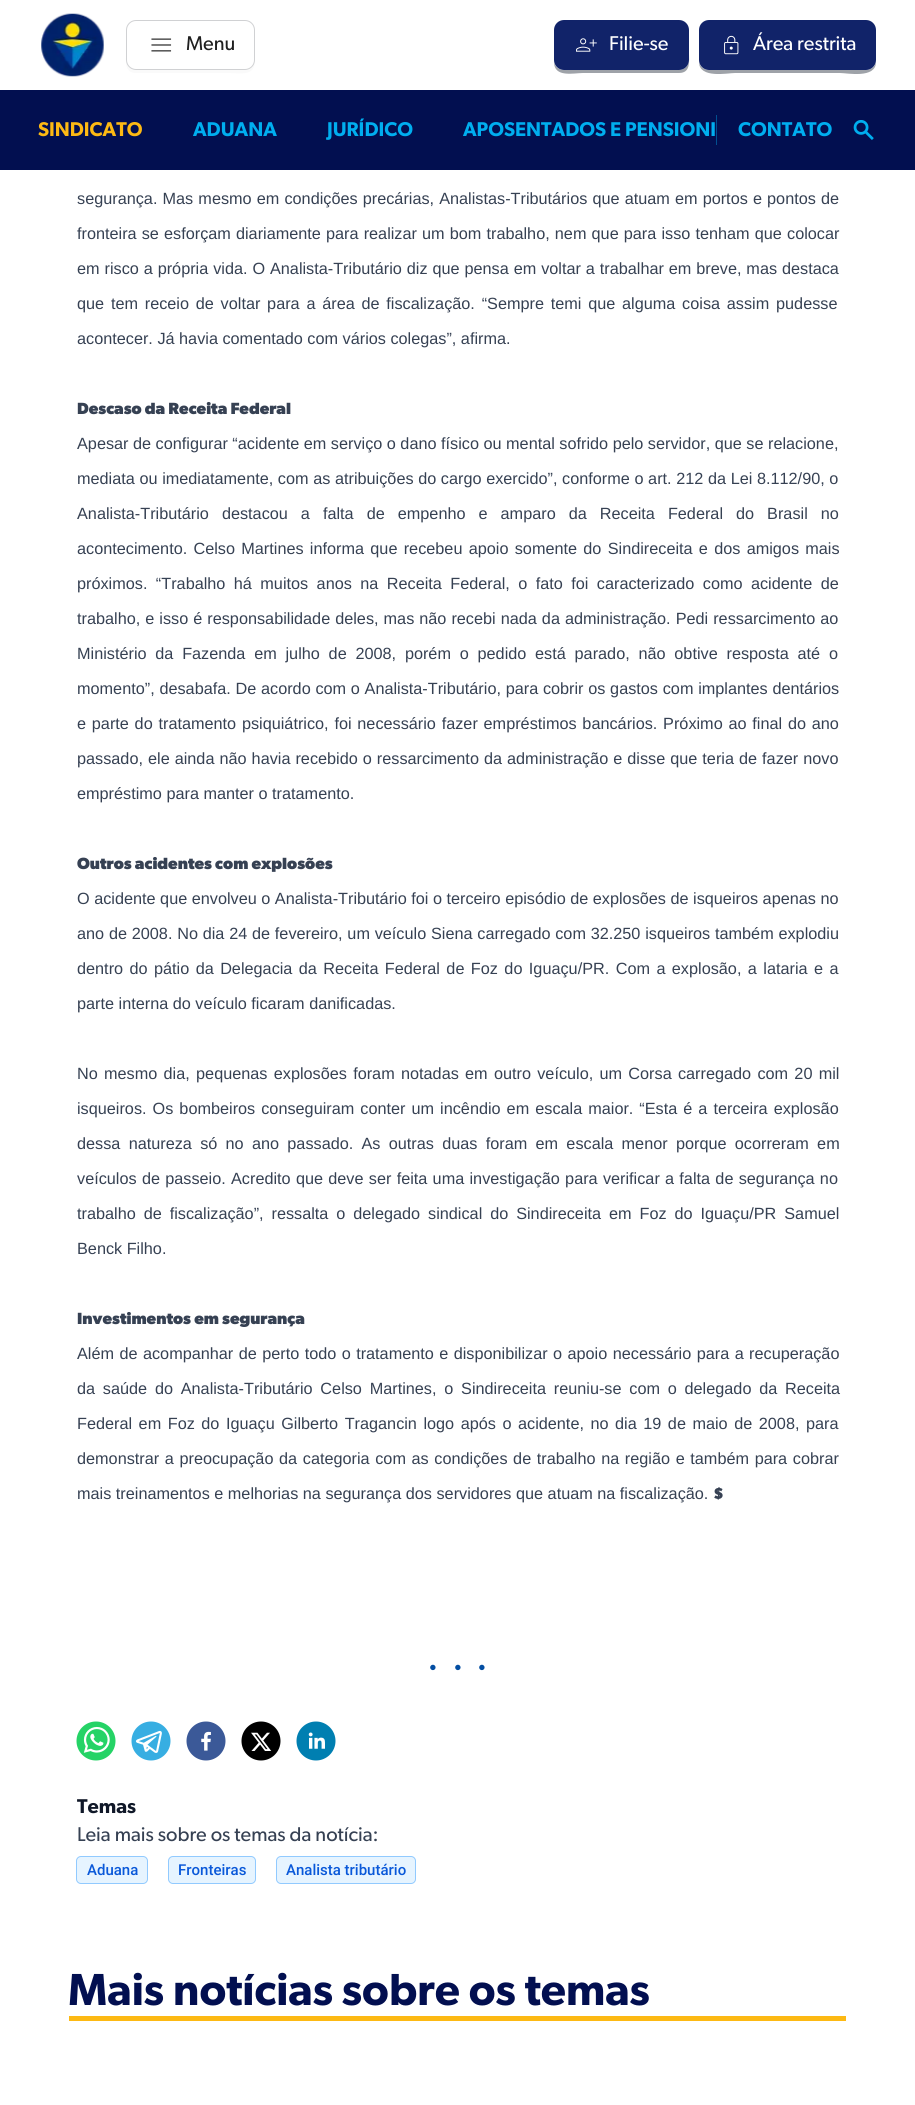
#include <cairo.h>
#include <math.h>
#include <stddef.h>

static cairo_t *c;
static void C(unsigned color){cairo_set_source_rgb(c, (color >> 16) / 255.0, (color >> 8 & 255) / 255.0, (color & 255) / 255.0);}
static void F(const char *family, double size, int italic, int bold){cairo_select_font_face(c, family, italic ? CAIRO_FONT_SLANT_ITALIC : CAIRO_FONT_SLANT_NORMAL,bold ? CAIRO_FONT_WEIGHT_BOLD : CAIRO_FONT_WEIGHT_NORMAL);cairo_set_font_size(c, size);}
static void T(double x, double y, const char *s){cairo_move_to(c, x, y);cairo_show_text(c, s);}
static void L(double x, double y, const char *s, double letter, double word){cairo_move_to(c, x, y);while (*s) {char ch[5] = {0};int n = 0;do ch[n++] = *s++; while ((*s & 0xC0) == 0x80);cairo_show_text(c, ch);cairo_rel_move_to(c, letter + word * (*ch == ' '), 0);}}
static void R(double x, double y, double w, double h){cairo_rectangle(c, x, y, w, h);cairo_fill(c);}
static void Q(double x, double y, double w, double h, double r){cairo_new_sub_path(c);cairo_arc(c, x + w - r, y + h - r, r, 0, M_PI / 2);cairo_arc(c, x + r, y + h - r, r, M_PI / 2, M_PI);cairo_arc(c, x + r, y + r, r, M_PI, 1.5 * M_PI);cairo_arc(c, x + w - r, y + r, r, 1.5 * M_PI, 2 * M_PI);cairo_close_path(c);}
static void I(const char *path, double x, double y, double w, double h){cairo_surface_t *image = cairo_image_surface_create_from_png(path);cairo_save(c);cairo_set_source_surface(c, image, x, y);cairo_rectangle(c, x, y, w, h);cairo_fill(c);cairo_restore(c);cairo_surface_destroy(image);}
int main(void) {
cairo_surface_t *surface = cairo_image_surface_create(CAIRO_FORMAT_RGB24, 915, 2105);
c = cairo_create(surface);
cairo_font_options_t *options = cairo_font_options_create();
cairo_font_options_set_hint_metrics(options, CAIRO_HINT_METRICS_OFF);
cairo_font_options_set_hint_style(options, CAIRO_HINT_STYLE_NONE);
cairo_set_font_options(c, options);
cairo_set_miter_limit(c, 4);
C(0xffffff);
cairo_paint(c);
I("1.png",41,13,63,64);
C(0xfafafa);
cairo_new_path(c);
cairo_move_to(c,126,31);
cairo_line_to(c,126,53);
cairo_curve_to(c,126,61,124,73,136,73);
cairo_line_to(c,227,73);
cairo_curve_to(c,241,73,255,77,255,60);
cairo_curve_to(c,255,66,251,70,245,70);
cairo_line_to(c,136,70);
cairo_curve_to(c,131,70,126,66,126,60);
cairo_close_path(c);
cairo_fill(c);
Q(126.5,20.5,128,49,9.5);
C(0xd0d1d3);
cairo_set_line_width(c,1);
cairo_stroke(c);
I("2.png",151,38,21,14);
F("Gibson",20,0,0);
C(0x1f1f1f);
T(186,50,"Menu");
C(0x9ea2a8);
cairo_new_path(c);
cairo_move_to(c,554,62);
cairo_curve_to(c,554,78,574,73,583,73);
cairo_line_to(c,679,73);
cairo_curve_to(c,691,73,689,61,689,53);
cairo_line_to(c,689,31);
cairo_line_to(c,689,60);
cairo_curve_to(c,689,66,684,70,679,70);
cairo_line_to(c,564,70);
cairo_curve_to(c,559,70,555,67,554,62);
cairo_close_path(c);
cairo_fill(c);
C(0x112369);
Q(554,20,135,50,10);
cairo_fill(c);
I("3.png",576,38,21,14);
C(0xffffff);
T(609,50,"Filie-se");
C(0x9ea2a8);
cairo_new_path(c);
cairo_move_to(c,699,62);
cairo_curve_to(c,699,79,728,73,735,73);
cairo_line_to(c,840,73);
cairo_curve_to(c,847,73,876,79,876,62);
cairo_curve_to(c,875,67,871,70,866,70);
cairo_line_to(c,709,70);
cairo_curve_to(c,704,70,700,67,699,62);
cairo_close_path(c);
cairo_fill(c);
C(0x112369);
Q(699,20,177,50,10);
cairo_fill(c);
I("4.png",724,35,15,20);
C(0xffffff);
T(753,50,"Área restrita");
C(0x020f50);
R(0,90,915,80);
F("Gibson SemiBold",20,0,0);
C(0xfdb913);
T(38,136,"SINDICATO");
C(0x00aeef);
T(193,136,"ADUANA");
T(327,136,"JURÍDICO");
T(463,136,"APOSENTADOS E PENSIONI");
C(0x014f90);
R(716,115,1,30);
C(0x00aeef);
T(738,136,"CONTATO");
I("5.png",853,120,21,20);
F("Liberation Sans",16.25,0,0);
C(0x364153);
L(77,204,"segurança. Mas mesmo em condições precárias, Analistas-Tributários que atuam em portos e pontos de",0,.6);
L(77,239,"fronteira se esforçam diariamente para realizar um bom trabalho, nem que para isso tenham que colocar",0,.6);
L(77,274,"em risco a própria vida. O Analista-Tributário diz que pensa em voltar a trabalhar em breve, mas destaca",0,.4);
L(77,309,"que tem receio de voltar para a área de fiscalização. “Sempre temi que alguma coisa assim pudesse",0,2.25);
T(77,344,"acontecer. Já havia comentado com vários colegas”, afirma.");
F("Gibson",16.25,0,1);
T(77,414,"Descaso da Receita Federal");
F("Liberation Sans",16.25,0,0);
T(77,449,"Apesar de configurar “acidente em serviço o dano físico ou mental sofrido pelo servidor, que se relacione,");
L(77,484,"mediata ou imediatamente, com as atribuições do cargo exercido”, conforme o art. 212 da Lei 8.112/90, o",0,.1);
L(77,519,"Analista-Tributário destacou a falta de empenho e amparo da Receita Federal do Brasil no",0,8.5);
L(77,554,"acontecimento. Celso Martines informa que recebeu apoio somente do Sindireceita e dos amigos mais",0,1.75);
L(77,589,"próximos. “Trabalho há muitos anos na Receita Federal, o fato foi caracterizado como acidente de",0,3.9);
L(77,624,"trabalho, e isso é responsabilidade deles, mas não recebi nada da administração. Pedi ressarcimento ao",0,.5);
L(77,659,"Ministério da Fazenda em julho de 2008, porém o pedido está parado, não obtive resposta até o",0,4.25);
L(77,694,"momento”, desabafa. De acordo com o Analista-Tributário, para cobrir os gastos com implantes dentários",0,.2);
L(77,729,"e parte do tratamento psiquiátrico, foi necessário fazer empréstimos bancários. Próximo ao final do ano",0,1.25);
L(77,764,"passado, ele ainda não havia recebido o ressarcimento da administração e disse que teria de fazer novo",0,.5);
T(77,799,"empréstimo para manter o tratamento.");
F("Gibson",16.25,0,1);
T(77,869,"Outros acidentes com explosões");
F("Liberation Sans",16.25,0,0);
T(77,904,"O acidente que envolveu o Analista-Tributário foi o terceiro episódio de explosões de isqueiros apenas no");
L(77,939,"ano de 2008. No dia 24 de fevereiro, um veículo Siena carregado com 32.250 isqueiros também explodiu",0,.25);
L(77,974,"dentro do pátio da Delegacia da Receita Federal de Foz do Iguaçu/PR. Com a explosão, a lataria e a",0,1.9);
T(77,1009,"parte interna do veículo ficaram danificadas.");
L(77,1079,"No mesmo dia, pequenas explosões foram notadas em outro veículo, um Corsa carregado com 20 mil",0,1.75);
L(77,1114,"isqueiros. Os bombeiros conseguiram conter um incêndio em escala maior. “Esta é a terceira explosão",0,1.5);
L(77,1149,"dessa natureza só no ano passado. As outras duas foram em escala menor porque ocorreram em",0,3.75);
L(77,1184,"veículos de passeio. Acredito que deve ser feita uma investigação para verificar a falta de segurança no",0,.75);
L(77,1219,"trabalho de fiscalização”, ressalta o delegado sindical do Sindireceita em Foz do Iguaçu/PR Samuel",0,3.4);
T(77,1254,"Benck Filho.");
F("Gibson",16.25,0,1);
T(77,1324,"Investimentos em segurança");
F("Liberation Sans",16.25,0,0);
L(77,1359,"Além de acompanhar de perto todo o tratamento e disponibilizar o apoio necessário para a recuperação",0,.9);
L(77,1394,"da saúde do Analista-Tributário Celso Martines, o Sindireceita reuniu-se com o delegado da Receita",0,3.25);
L(77,1429,"Federal em Foz do Iguaçu Gilberto Tragancin logo após o acidente, no dia 19 de maio de 2008, para",0,2);
L(77,1464,"demonstrar a preocupação da categoria com as condições de trabalho na região e também para cobrar",0,1.1);
T(77,1499,"mais treinamentos e melhorias na segurança dos servidores que atuam na fiscalização.");
F("Gibson",16.25,0,1);
T(713,1499,"$");
F("Gibson",18,0,0);
C(0x034ea2);
T(428,1674,"•");
T(453,1674,"•");
T(477,1674,"•");
I("6.png",76,1721,40,40);
I("7.png",131,1721,40,40);
I("8.png",186,1721,40,40);
I("9.png",241,1721,40,40);
I("10.png",296,1721,40,40);
F("Gibson SemiBold",20,0,0);
C(0x101828);
T(77,1813,"Temas");
F("Gibson",20,0,0);
C(0x364153);
T(77,1841,"Leia mais sobre os temas da notícia:");
C(0xe6f4ff);
Q(76.5,1856.5,71,27,4.5);
cairo_fill_preserve(c);
C(0x91caff);
cairo_stroke(c);
F("Roboto Medium",15,0,0);
C(0x0958d9);
T(87,1875,"Aduana");
C(0xe6f4ff);
Q(168.5,1856.5,87,27,4.5);
cairo_fill_preserve(c);
C(0x91caff);
cairo_stroke(c);
C(0x0958d9);
T(178,1875,"Fronteiras");
C(0xe6f4ff);
Q(276.5,1856.5,139,27,4.5);
cairo_fill_preserve(c);
C(0x91caff);
cairo_stroke(c);
C(0x0958d9);
T(286,1875,"Analista tributário");
C(0xfdb913);
R(69,2016,777,5);
F("Gibson SemiBold",45,0,0);
C(0x020f50);
T(68,2005,"Mais notícias sobre os temas");
cairo_surface_write_to_png(surface, "o.png");
cairo_font_options_destroy(options);
cairo_destroy(c);
cairo_surface_destroy(surface);
return 0;
}
